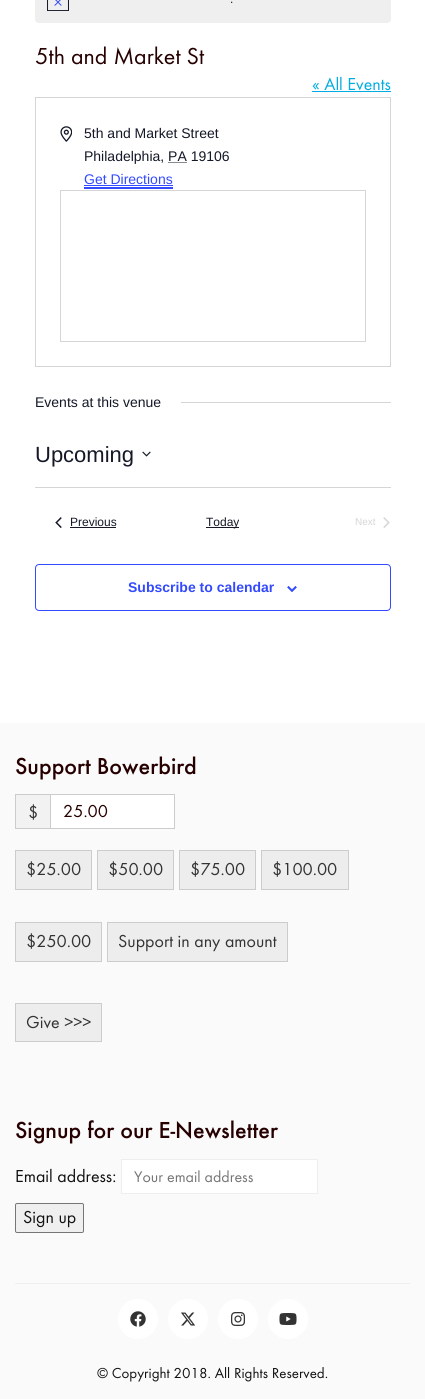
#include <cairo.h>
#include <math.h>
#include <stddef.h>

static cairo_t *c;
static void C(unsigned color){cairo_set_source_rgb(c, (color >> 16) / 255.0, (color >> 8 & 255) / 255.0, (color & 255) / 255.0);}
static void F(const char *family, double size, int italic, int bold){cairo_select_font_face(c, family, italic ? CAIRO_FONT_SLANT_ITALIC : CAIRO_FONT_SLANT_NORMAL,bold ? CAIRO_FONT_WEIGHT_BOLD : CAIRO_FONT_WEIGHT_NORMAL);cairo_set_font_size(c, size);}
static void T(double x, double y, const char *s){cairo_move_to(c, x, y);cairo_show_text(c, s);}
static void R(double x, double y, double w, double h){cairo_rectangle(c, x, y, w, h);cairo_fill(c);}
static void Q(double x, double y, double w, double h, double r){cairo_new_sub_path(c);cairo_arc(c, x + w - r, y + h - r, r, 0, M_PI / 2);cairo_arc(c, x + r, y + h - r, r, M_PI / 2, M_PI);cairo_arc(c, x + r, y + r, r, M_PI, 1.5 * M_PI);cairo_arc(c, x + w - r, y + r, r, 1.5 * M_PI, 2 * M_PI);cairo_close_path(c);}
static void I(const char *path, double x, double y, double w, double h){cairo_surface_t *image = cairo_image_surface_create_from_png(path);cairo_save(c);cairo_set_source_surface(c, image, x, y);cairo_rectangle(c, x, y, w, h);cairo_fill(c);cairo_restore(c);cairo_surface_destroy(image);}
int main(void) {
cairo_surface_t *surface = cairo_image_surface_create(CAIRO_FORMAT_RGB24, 425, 1399);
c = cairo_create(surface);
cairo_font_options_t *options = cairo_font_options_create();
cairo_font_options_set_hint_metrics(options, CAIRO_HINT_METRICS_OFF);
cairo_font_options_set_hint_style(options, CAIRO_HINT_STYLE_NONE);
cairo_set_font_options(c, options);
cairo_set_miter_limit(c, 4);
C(0xffffff);
cairo_paint(c);
C(0xefeff0);
Q(35,-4,356,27,4);
cairo_fill(c);
I("1.png",47,0,22,11);
F("Liberation Sans",12,0,0);
C(0x141827);
T(230,3,".");
F("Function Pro",24,0,0);
C(0x260000);
T(35,64,"5th and Market St");
F("Function Pro",18,0,0);
C(0x00ace1);
T(312,90,"« All Events");
R(312,91,79,1);
cairo_rectangle(c,35.5,97.5,355,269);
C(0xd5d5d5);
cairo_set_line_width(c,1);
cairo_stroke(c);
I("2.png",60,126,12,16);
F("Liberation Sans",14,0,0);
C(0x141827);
T(84,138,"5th and Market Street");
T(84,161,"Philadelphia, PA 19106");
cairo_new_path(c);
cairo_move_to(c,168.5,162.5);
cairo_line_to(c,187,162.5);
cairo_set_dash(c,(double[]){1,1},2,0);
cairo_stroke(c);
C(0x334aff);
T(84,184,"Get Directions");
R(84,187,89,2);
R(84,185,89,1);
cairo_rectangle(c,60.5,190.5,305,151);
C(0xd5d5d5);
cairo_set_dash(c,NULL,0,0);
cairo_stroke(c);
C(0x141827);
T(35,407,"Events at this venue");
C(0xd5d5d5);
R(181,402,210,1);
F("Liberation Sans",22,0,0);
C(0x141827);
T(35,462,"Upcoming");
I("3.png",142,451,9,6);
C(0xd5d5d5);
R(35,487,356,1);
I("4.png",55,517,7,11);
F("Liberation Sans",12,0,0);
C(0x141827);
T(70,526,"Previous");
R(70,527,46,1);
R(206,527,33,1);
T(206,526,"Today");
F("Liberation Sans",10,0,0);
C(0xd5d5d5);
T(355,525,"Next");
I("5.png",383,517,7,11);
Q(35.5,564.5,355,46,3.5);
C(0x334aff);
cairo_stroke(c);
F("Liberation Sans",14,0,1);
T(128,592,"Subscribe to calendar");
I("6.png",287,586,10,6);
C(0xfafafa);
R(0,723,425,676);
F("Function Pro Medium",24,0,0);
C(0x260000);
T(15,774,"Support Bowerbird");
C(0xf2f2f2);
R(16,795,34,33);
C(0xcccccc);
R(15,794,35,1);
R(15,828,35,1);
R(15,794,1,35);
F("Function Pro",18,0,0);
C(0x333333);
T(28,818,"$");
C(0xffffff);
cairo_rectangle(c,50.5,794.5,124,34);
cairo_fill_preserve(c);
C(0xcccccc);
cairo_stroke(c);
C(0x260000);
T(63,817,"25.00");
C(0xededed);
cairo_rectangle(c,15.5,850.5,76,39);
cairo_fill_preserve(c);
C(0xcccccc);
cairo_stroke(c);
C(0x333333);
T(26,875,"$25.00");
C(0xededed);
cairo_rectangle(c,97.5,850.5,76,39);
cairo_fill_preserve(c);
C(0xcccccc);
cairo_stroke(c);
C(0x333333);
T(108,875,"$50.00");
C(0xededed);
cairo_rectangle(c,179.5,850.5,76,39);
cairo_fill_preserve(c);
C(0xcccccc);
cairo_stroke(c);
C(0x333333);
T(190,875,"$75.00");
C(0xededed);
cairo_rectangle(c,261.5,850.5,87,39);
cairo_fill_preserve(c);
C(0xcccccc);
cairo_stroke(c);
C(0x333333);
T(272,875,"$100.00");
C(0xededed);
cairo_rectangle(c,15.5,922.5,86,39);
cairo_fill_preserve(c);
C(0xcccccc);
cairo_stroke(c);
C(0x333333);
T(26,947,"$250.00");
C(0xededed);
cairo_rectangle(c,107.5,922.5,180,39);
cairo_fill_preserve(c);
C(0xcccccc);
cairo_stroke(c);
C(0x333333);
T(118,947,"Support in any amount");
C(0xededed);
cairo_rectangle(c,15.5,1003.5,86,38);
cairo_fill_preserve(c);
C(0xcccccc);
cairo_stroke(c);
C(0x333333);
T(26,1028,"Give >>>");
F("Function Pro Medium",24,0,0);
C(0x260000);
T(15,1138,"Signup for our E-Newsletter");
F("Function Pro",18,0,0);
C(0x111111);
T(15,1182,"Email address:");
C(0xffffff);
cairo_rectangle(c,121.5,1159.5,196,34);
cairo_fill_preserve(c);
C(0xeeeeee);
cairo_stroke(c);
F("Function Pro",16,0,0);
C(0x757575);
T(134,1182,"Your email address");
C(0xefefef);
Q(15.5,1203.5,68,29,1.5);
cairo_fill_preserve(c);
C(0x767676);
cairo_stroke(c);
F("Function Pro",18,0,0);
C(0x111111);
T(23,1223,"Sign up");
C(0xeeeeee);
R(15,1283,395,1);
C(0xffffff);
cairo_new_path(c);
cairo_arc(c,138,1319,20,0,2 * M_PI);
cairo_fill(c);
I("7.png",130,1311,16,16);
cairo_arc(c,188,1319,20,0,2 * M_PI);
cairo_fill(c);
I("8.png",181,1312,15,14);
cairo_arc(c,238,1319,20,0,2 * M_PI);
cairo_fill(c);
I("9.png",231,1312,14,14);
cairo_arc(c,288,1319,20,0,2 * M_PI);
cairo_fill(c);
I("10.png",279,1313,18,12);
F("Function Pro",15,0,0);
C(0x111111);
T(97,1378,"© Copyright 2018. All Rights Reserved.");
cairo_surface_write_to_png(surface, "o.png");
cairo_font_options_destroy(options);
cairo_destroy(c);
cairo_surface_destroy(surface);
return 0;
}
